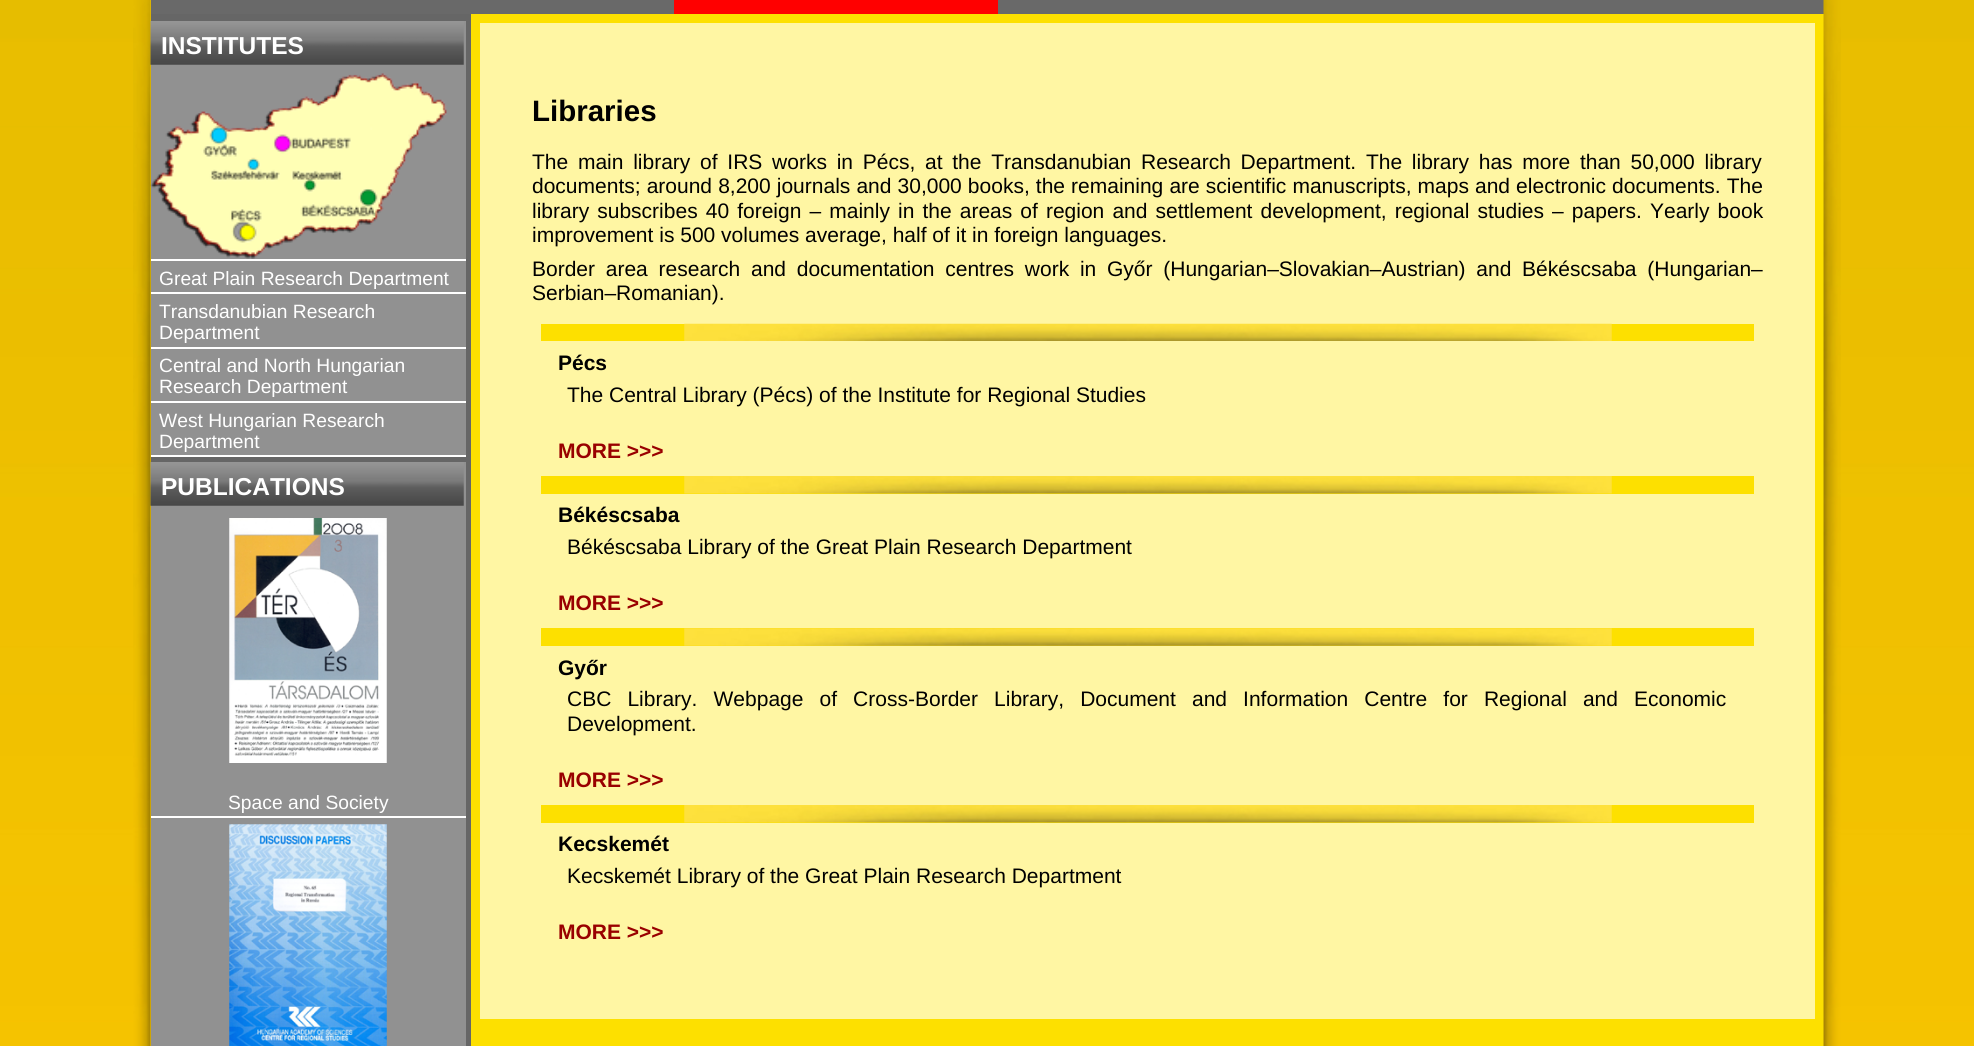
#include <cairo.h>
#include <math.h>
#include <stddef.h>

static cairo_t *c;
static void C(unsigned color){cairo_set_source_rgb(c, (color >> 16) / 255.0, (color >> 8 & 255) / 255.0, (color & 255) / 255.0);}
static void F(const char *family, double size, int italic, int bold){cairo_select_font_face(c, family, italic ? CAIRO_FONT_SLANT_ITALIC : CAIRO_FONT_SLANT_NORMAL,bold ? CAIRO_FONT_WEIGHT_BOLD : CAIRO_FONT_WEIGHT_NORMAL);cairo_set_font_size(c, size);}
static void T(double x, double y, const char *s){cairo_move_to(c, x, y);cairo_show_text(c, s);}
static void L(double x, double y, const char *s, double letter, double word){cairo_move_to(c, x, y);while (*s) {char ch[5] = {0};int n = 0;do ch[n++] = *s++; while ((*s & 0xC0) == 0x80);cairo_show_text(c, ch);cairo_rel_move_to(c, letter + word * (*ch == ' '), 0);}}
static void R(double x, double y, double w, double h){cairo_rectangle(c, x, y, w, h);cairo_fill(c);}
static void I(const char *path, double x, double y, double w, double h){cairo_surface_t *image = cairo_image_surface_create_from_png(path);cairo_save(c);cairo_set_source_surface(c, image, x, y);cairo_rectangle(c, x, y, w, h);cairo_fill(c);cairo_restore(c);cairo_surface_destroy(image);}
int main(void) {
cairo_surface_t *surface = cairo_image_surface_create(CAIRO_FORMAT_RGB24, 1974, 1046);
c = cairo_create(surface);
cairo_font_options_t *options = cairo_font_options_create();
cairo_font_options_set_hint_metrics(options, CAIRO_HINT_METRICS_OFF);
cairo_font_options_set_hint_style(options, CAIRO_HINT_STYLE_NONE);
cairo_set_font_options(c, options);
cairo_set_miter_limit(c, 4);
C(0xffffff);
cairo_paint(c);
I("1.png",0,0,1974,1046);
I("2.png",133,0,18,1046);
C(0xfde000);
R(471,14,1353,1032);
C(0x696969);
R(151,0,1673,14);
C(0xff0000);
R(674,0,324,14);
C(0x666666);
R(151,14,320,1032);
C(0x919191);
R(151,21,315,434);
I("3.png",150,21,314,44);
F("Liberation Sans",24.5,0,1);
C(0xffffff);
T(161,54,"INSTITUTES");
R(151,259,315,2);
I("4.png",150,73,297,186);
R(151,292,315,2);
F("Liberation Sans",19.25,0,0);
T(159,285,"Great Plain Research Department");
R(151,347,315,2);
T(159,318,"Transdanubian Research");
T(159,339,"Department");
R(151,401,315,2);
T(159,372,"Central and North Hungarian");
T(159,393,"Research Department");
R(151,455,315,2);
T(159,427,"West Hungarian Research");
T(159,448,"Department");
C(0x919191);
R(151,462,315,584);
I("5.png",150,462,314,44);
F("Liberation Sans",24.5,0,1);
C(0xffffff);
T(161,495,"PUBLICATIONS");
R(151,816,315,2);
I("6.png",229,518,158,245);
F("Liberation Sans",19.25,0,0);
T(228,809,"Space and Society");
I("7.png",229,824,158,222);
C(0xfff6a3);
R(480,23,1335,996);
F("Liberation Sans",29.5,0,1);
C(0x000000);
T(532,121,"Libraries");
F("Liberation Sans",21,0,0);
L(532,169,"The main library of IRS works in Pécs, at the Transdanubian Research Department. The library has more than 50,000 library",0,3.9);
L(532,193,"documents; around 8,200 journals and 30,000 books, the remaining are scientific manuscripts, maps and electronic documents. The",0,.25);
L(532,218,"library subscribes 40 foreign – mainly in the areas of region and settlement development, regional studies – papers. Yearly book",0,2.25);
T(532,242,"improvement is 500 volumes average, half of it in foreign languages.");
L(532,276,"Border area research and documentation centres work in Győr (Hungarian–Slovakian–Austrian) and Békéscsaba (Hungarian–",0,4.9);
T(532,300,"Serbian–Romanian).");
C(0xfde000);
R(541,324,1213,17);
I("8.png",684,323,928,18);
F("Liberation Sans",21,0,1);
C(0x000000);
T(558,370,"Pécs");
F("Liberation Sans",21,0,0);
T(567,402,"The Central Library (Pécs) of the Institute for Regional Studies");
F("Liberation Sans",21,0,1);
C(0x990000);
T(558,458,"MORE >>>");
C(0xfde000);
R(541,476,1213,18);
I("9.png",684,476,928,18);
C(0x000000);
T(558,522,"Békéscsaba");
F("Liberation Sans",21,0,0);
T(567,554,"Békéscsaba Library of the Great Plain Research Department");
F("Liberation Sans",21,0,1);
C(0x990000);
T(558,610,"MORE >>>");
C(0xfde000);
R(541,628,1213,18);
I("10.png",684,628,928,18);
C(0x000000);
T(558,675,"Győr");
F("Liberation Sans",21,0,0);
L(567,706,"CBC Library. Webpage of Cross-Border Library, Document and Information Centre for Regional and Economic",0,10.25);
T(567,731,"Development.");
F("Liberation Sans",21,0,1);
C(0x990000);
T(558,787,"MORE >>>");
C(0xfde000);
R(541,805,1213,18);
I("9.png",684,805,928,18);
C(0x000000);
T(558,851,"Kecskemét");
F("Liberation Sans",21,0,0);
T(567,883,"Kecskemét Library of the Great Plain Research Department");
F("Liberation Sans",21,0,1);
C(0x990000);
T(558,939,"MORE >>>");
I("11.png",1823,0,18,1046);
cairo_surface_write_to_png(surface, "o.png");
cairo_font_options_destroy(options);
cairo_destroy(c);
cairo_surface_destroy(surface);
return 0;
}
